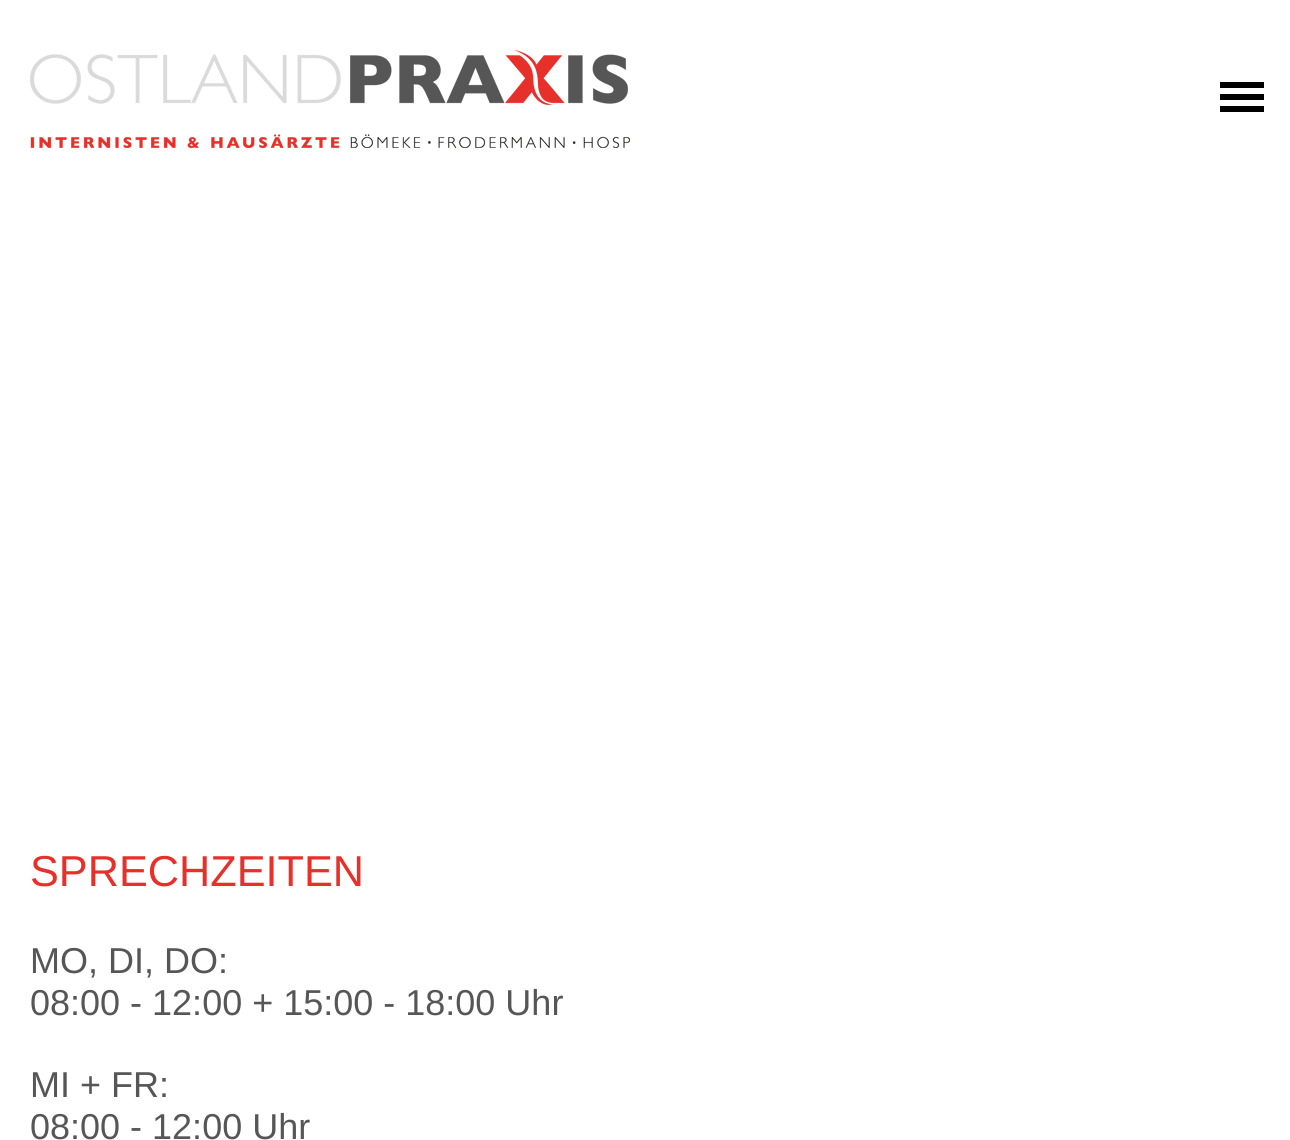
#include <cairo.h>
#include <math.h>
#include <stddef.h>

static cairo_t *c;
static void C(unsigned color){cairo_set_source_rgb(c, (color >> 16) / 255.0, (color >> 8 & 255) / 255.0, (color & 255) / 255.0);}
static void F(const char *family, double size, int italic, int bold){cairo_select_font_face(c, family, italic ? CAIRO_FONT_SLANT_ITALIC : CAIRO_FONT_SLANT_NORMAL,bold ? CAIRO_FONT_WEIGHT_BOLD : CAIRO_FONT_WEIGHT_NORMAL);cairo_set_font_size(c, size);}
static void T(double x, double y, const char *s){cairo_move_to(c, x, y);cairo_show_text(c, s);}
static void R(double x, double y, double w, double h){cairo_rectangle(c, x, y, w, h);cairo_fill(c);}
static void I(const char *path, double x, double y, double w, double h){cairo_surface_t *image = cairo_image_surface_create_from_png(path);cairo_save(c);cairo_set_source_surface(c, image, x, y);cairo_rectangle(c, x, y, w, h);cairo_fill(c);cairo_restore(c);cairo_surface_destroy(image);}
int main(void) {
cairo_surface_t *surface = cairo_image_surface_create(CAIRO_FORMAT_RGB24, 1290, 1140);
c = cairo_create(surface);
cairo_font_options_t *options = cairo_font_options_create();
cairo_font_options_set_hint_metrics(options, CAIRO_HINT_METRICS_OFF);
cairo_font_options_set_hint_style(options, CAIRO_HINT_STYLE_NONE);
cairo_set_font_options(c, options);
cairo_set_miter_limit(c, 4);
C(0xffffff);
cairo_paint(c);
I("1.png",30,50,600,98);
C(0x000000);
R(1220,82,44,6);
R(1220,94,44,6);
R(1220,106,44,6);
F("Liberation Sans",43.25,0,0);
C(0xe7302a);
T(30,886,"SPRECHZEITEN");
F("Liberation Sans",36,0,0);
C(0x575656);
T(30,973,"MO, DI, DO:");
T(30,1015,"08:00 - 12:00 + 15:00 - 18:00 Uhr");
T(30,1097,"MI + FR:");
T(30,1139,"08:00 - 12:00 Uhr");
cairo_surface_write_to_png(surface, "o.png");
cairo_font_options_destroy(options);
cairo_destroy(c);
cairo_surface_destroy(surface);
return 0;
}
